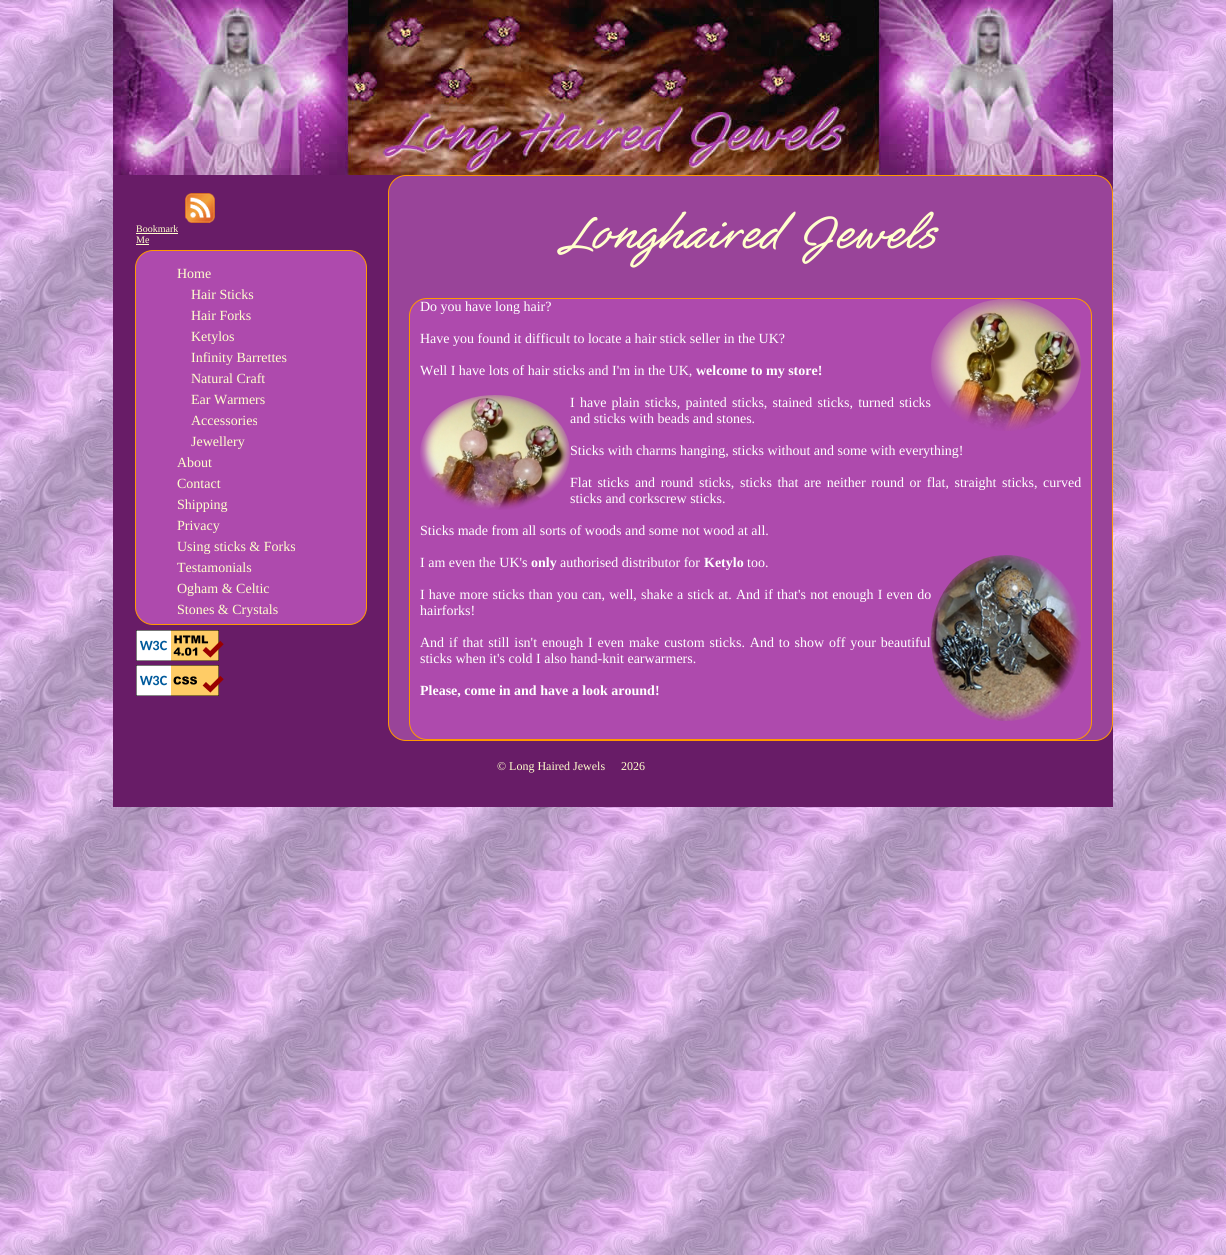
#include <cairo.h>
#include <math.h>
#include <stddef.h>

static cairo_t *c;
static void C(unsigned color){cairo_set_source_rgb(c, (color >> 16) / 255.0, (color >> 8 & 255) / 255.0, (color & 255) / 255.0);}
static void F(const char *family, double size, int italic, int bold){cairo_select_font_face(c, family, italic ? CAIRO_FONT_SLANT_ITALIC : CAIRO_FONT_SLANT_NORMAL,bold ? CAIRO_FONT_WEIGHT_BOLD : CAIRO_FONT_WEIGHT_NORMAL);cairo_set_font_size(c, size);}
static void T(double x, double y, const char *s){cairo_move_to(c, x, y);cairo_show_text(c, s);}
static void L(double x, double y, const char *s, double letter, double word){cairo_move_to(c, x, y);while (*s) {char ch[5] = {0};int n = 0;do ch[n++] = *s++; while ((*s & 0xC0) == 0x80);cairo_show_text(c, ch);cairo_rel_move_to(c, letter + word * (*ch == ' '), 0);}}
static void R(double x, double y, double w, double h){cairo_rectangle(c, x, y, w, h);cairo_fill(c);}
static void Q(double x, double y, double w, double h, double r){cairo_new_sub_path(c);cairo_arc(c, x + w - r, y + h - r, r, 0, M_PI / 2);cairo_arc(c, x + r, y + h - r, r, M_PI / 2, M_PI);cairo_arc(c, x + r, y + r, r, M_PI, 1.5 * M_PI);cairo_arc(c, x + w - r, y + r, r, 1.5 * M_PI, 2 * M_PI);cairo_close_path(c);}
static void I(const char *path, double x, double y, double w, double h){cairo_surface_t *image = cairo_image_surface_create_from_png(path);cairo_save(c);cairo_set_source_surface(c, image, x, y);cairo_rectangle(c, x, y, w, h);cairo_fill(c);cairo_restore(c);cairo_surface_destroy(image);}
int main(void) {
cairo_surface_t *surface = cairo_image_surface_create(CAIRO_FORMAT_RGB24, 1226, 1255);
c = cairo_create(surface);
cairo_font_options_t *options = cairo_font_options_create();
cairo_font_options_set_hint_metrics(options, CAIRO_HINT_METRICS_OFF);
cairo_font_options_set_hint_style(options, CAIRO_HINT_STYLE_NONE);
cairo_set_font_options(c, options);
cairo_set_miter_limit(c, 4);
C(0xffffff);
cairo_paint(c);
I("1.png",0,0,1226,1255);
C(0x681c67);
R(113,175,1000,632);
I("2.png",113,0,1000,175);
I("3.png",185,193,30,30);
F("Liberation Serif",10,0,0);
C(0xffffcc);
T(136,232,"Bookmark");
R(136,233,42,1);
T(136,243,"Me");
R(136,244,13,1);
C(0xae4aad);
Q(135.5,250.5,231,374,17.5);
cairo_fill_preserve(c);
C(0xff9900);
cairo_set_line_width(c,1);
cairo_stroke(c);
F("Liberation Serif",14,0,0);
C(0xffffcc);
T(177,278,"Home");
T(191,299,"Hair Sticks");
T(191,320,"Hair Forks");
T(191,341,"Ketylos");
T(191,362,"Infinity Barrettes");
T(191,383,"Natural Craft");
T(191,404,"Ear Warmers");
T(191,425,"Accessories");
T(191,446,"Jewellery");
T(177,467,"About");
T(177,488,"Contact");
T(177,509,"Shipping");
T(177,530,"Privacy");
T(177,551,"Using sticks & Forks");
T(177,572,"Testamonials");
T(177,593,"Ogham & Celtic");
T(177,614,"Stones & Crystals");
I("4.png",136,630,88,31);
I("5.png",136,665,88,31);
C(0x994499);
Q(388.5,175.5,724,565,17.5);
cairo_fill_preserve(c);
C(0xff9900);
cairo_stroke(c);
F("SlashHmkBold",45,0,1);
C(0xffffcc);
T(564,247,"Longhaired Jewels");
C(0xae4aad);
Q(409.5,298.5,682,441,17.5);
cairo_fill_preserve(c);
C(0xff9900);
cairo_stroke(c);
F("Liberation Serif",14,0,0);
C(0xffffff);
T(420,311,"Do you have long hair?");
I("6.png",931,299,150,132);
T(420,343,"Have you found it difficult to locate a hair stick seller in the UK?");
T(420,375,"Well I have lots of hair sticks and I'm in the UK,");
F("Liberation Serif",14,0,1);
T(696,375,"welcome to my store!");
I("7.png",420,395,150,115);
F("Liberation Serif",14,0,0);
L(570,407,"I have plain sticks, painted sticks, stained sticks, turned sticks",0,1.75);
T(570,423,"and sticks with beads and stones.");
T(570,455,"Sticks with charms hanging, sticks without and some with everything!");
L(570,487,"Flat sticks and round sticks, sticks that are neither round or flat, straight sticks, curved",0,2.1);
T(570,503,"sticks and corkscrew sticks.");
T(420,535,"Sticks made from all sorts of woods and some not wood at all.");
T(420,567,"I am even the UK's");
F("Liberation Serif",14,0,1);
T(531,567,"only");
F("Liberation Serif",14,0,0);
T(560,567,"authorised distributor for");
F("Liberation Serif",14,0,1);
T(704,567,"Ketylo");
F("Liberation Serif",14,0,0);
T(747,567,"too.");
I("8.png",931,555,150,166);
L(420,599,"I have more sticks than you can, well, shake a stick at. And if that's not enough I even do",0,.7);
T(420,615,"hairforks!");
L(420,647,"And if that still isn't enough I even make custom sticks. And to show off your beautiful",0,1.4);
T(420,663,"sticks when it's cold I also hand-knit earwarmers.");
F("Liberation Serif",14,0,1);
T(420,695,"Please, come in and have a look around!");
F("Liberation Serif",12,0,0);
C(0xffffcc);
T(497,770,"© Long Haired Jewels");
T(621,770,"2026");
cairo_surface_write_to_png(surface, "o.png");
cairo_font_options_destroy(options);
cairo_destroy(c);
cairo_surface_destroy(surface);
return 0;
}
